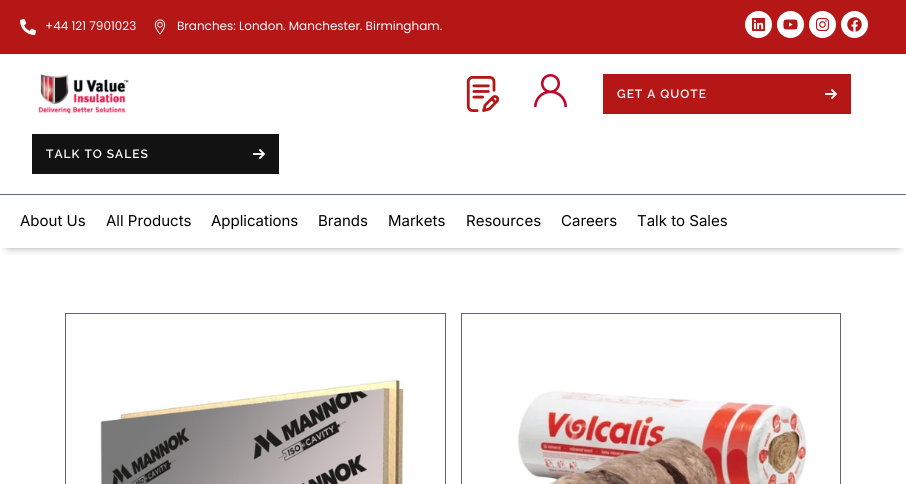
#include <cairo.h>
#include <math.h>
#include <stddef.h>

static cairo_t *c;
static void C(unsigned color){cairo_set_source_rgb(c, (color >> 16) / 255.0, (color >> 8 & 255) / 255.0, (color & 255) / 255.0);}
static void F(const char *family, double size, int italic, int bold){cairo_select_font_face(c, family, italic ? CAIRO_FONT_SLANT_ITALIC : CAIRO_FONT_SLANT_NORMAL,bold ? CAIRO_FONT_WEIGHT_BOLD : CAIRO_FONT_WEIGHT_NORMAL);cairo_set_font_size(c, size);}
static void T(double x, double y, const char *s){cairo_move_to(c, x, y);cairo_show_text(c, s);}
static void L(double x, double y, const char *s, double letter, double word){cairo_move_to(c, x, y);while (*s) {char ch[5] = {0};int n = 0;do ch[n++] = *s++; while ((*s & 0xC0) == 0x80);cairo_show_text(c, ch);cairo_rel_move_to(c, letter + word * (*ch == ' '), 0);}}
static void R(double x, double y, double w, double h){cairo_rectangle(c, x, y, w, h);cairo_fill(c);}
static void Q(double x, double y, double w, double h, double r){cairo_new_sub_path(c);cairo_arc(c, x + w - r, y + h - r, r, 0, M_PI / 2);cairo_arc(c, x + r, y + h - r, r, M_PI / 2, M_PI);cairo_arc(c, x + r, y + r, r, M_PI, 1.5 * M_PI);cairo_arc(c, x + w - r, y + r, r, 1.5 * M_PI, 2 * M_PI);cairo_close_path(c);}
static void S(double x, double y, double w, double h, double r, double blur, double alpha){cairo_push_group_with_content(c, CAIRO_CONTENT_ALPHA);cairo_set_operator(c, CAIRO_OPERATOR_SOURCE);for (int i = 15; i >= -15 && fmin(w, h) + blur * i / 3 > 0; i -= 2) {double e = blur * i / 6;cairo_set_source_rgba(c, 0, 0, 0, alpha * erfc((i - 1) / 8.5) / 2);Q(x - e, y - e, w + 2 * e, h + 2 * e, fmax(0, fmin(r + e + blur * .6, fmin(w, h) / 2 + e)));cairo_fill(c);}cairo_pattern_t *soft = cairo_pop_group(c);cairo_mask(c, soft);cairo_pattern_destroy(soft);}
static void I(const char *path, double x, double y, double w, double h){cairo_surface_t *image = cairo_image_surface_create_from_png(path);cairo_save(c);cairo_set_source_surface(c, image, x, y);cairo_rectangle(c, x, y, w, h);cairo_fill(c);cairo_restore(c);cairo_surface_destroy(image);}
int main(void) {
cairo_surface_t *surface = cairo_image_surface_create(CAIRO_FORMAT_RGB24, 906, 484);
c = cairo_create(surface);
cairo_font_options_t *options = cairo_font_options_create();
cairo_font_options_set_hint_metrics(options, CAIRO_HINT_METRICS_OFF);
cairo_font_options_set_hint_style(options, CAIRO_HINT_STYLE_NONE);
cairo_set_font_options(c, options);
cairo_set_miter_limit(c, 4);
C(0xffffff);
cairo_paint(c);
C(0xb51717);
R(0,0,906,54);
I("1.png",20,19,16,16);
F("Poppins",12,0,0);
C(0xffffff);
T(45,30,"+44 121 7901023");
I("2.png",154,19,12,16);
T(177,30,"Branches: London. Manchester. Birmingham.");
cairo_new_path(c);
cairo_arc(c,758.5,24.5,13.5,0,2 * M_PI);
cairo_fill(c);
I("3.png",751,17,15,15);
cairo_arc(c,790.5,24.5,13.5,0,2 * M_PI);
cairo_fill(c);
I("4.png",783,19,15,11);
cairo_arc(c,822.5,24.5,13.5,0,2 * M_PI);
cairo_fill(c);
I("5.png",816,18,14,13);
cairo_arc(c,854.5,24.5,13.5,0,2 * M_PI);
cairo_fill(c);
I("6.png",847,17,15,15);
I("7.png",38,74,91,40);
I("8.png",466,76,34,36);
I("9.png",534,74,33,33);
C(0xb51717);
R(603,74,248,40);
F("Raleway SemiBold",12,0,0);
C(0xffffff);
L(617,98,"GET A QUOTE",1,0);
I("10.png",825,89,12,10);
C(0x121212);
R(32,134,247,40);
C(0xffffff);
L(46,158,"TALK TO SALES",1,0);
I("11.png",253,149,12,10);
cairo_save(c);
cairo_rectangle(c,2,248,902,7);
cairo_clip(c);
C(0x000000);
S(8,208,890,38,0,5,.5);
cairo_restore(c);
C(0x616379);
R(0,194,906,1);
F("Inter",15,0,0);
C(0x000000);
T(20,226,"About Us");
T(106,226,"All Products");
T(211,226,"Applications");
T(318,226,"Brands");
T(388,226,"Markets");
T(466,226,"Resources");
T(561,226,"Careers");
T(637,226,"Talk to Sales");
cairo_rectangle(c,65.5,313.5,380,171);
C(0x616379);
cairo_set_line_width(c,1);
cairo_stroke(c);
I("12.png",100,379,304,105);
cairo_rectangle(c,461.5,313.5,379,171);
cairo_stroke(c);
I("13.png",518,391,289,93);
cairo_surface_write_to_png(surface, "o.png");
cairo_font_options_destroy(options);
cairo_destroy(c);
cairo_surface_destroy(surface);
return 0;
}
